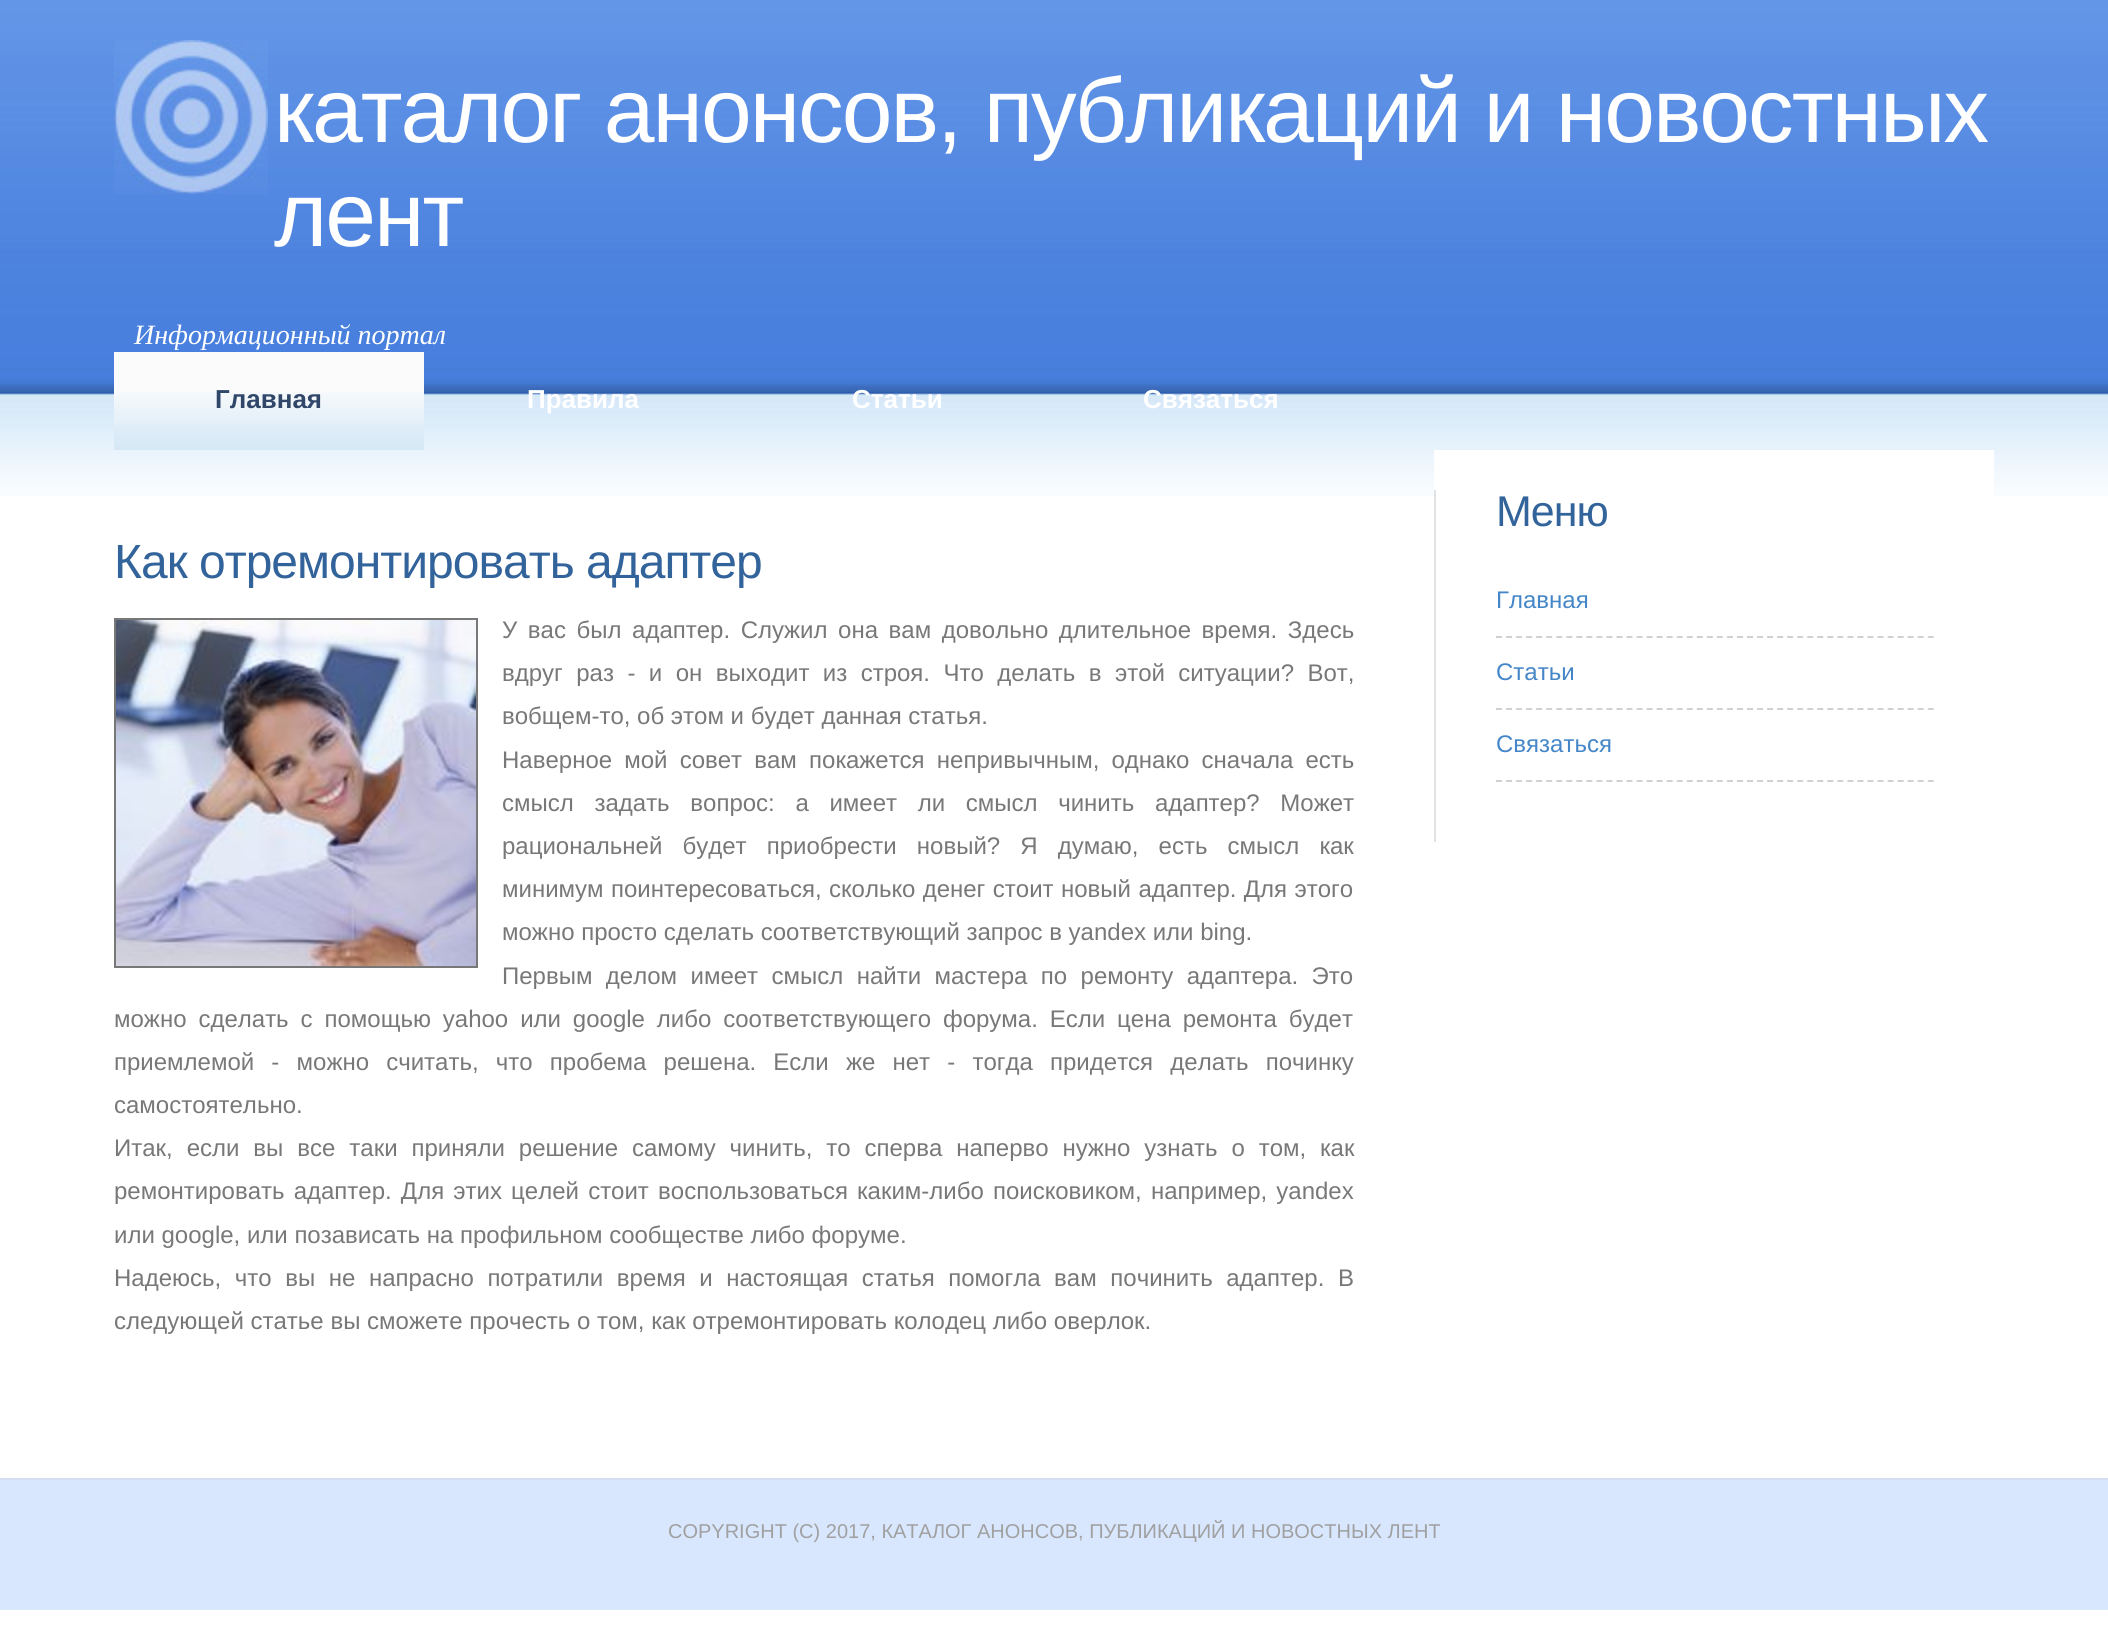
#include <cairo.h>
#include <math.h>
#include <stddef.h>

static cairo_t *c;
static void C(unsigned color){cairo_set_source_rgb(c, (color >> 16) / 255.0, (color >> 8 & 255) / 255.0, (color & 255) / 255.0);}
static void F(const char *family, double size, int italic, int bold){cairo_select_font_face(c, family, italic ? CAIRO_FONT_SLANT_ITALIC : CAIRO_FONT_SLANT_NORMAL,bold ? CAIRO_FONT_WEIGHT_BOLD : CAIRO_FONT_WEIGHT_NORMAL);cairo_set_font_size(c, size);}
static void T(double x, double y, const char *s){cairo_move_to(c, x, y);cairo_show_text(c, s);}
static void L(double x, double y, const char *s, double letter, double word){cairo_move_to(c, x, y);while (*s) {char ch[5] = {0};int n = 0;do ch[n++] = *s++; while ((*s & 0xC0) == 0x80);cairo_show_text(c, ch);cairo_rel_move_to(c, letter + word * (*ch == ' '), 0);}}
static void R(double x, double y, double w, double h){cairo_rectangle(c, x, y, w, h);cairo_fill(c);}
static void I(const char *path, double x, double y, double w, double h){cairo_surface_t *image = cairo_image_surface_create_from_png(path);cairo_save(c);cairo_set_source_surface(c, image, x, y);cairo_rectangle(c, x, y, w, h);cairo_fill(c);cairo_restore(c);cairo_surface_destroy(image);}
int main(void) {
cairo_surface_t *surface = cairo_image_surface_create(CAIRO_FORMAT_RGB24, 2108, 1646);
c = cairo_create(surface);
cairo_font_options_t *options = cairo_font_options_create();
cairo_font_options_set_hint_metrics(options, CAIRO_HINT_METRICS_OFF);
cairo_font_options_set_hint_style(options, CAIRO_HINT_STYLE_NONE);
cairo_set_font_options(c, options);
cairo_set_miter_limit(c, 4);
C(0xffffff);
cairo_paint(c);
I("1.png",0,0,2108,496);
I("2.png",114,40,154,154);
F("Liberation Sans",91.25,0,0);
C(0xffffff);
L(274,142,"каталог анонсов, публикаций и новостных",-2,0);
L(274,246,"лент",-2,0);
F("Liberation Serif",28,1,0);
T(134,344,"Информационный портал");
C(0xfbfbfc);
R(114,352,310,40);
I("3.png",114,392,310,58);
F("Liberation Sans",26,0,1);
C(0x30476a);
T(215,408,"Главная");
C(0xffffff);
T(527,408,"Правила");
T(852,408,"Статьи");
T(1143,408,"Связаться");
F("Liberation Sans",48,0,0);
C(0x32639a);
L(114,578,"Как отремонтировать адаптер",-1,0);
cairo_rectangle(c,115,619,362,348);
C(0x787878);
cairo_stroke(c);
I("4.png",116,620,360,346);
F("Liberation Sans",24,0,0);
L(502,638,"У вас был адаптер. Служил она вам довольно длительное время. Здесь",0,3.9);
L(502,681,"вдруг раз - и он выходит из строя. Что делать в этой ситуации? Вот,",0,6.75);
T(502,724,"вобщем-то, об этом и будет данная статья.");
L(502,768,"Наверное мой совет вам покажется непривычным, однако сначала есть",0,5.5);
L(502,811,"смысл задать вопрос: а имеет ли смысл чинить адаптер? Может",0,14);
L(502,854,"рациональней будет приобрести новый? Я думаю, есть смысл как",0,13.5);
L(502,897,"минимум поинтересоваться, сколько денег стоит новый адаптер. Для этого",0,.75);
T(502,940,"можно просто сделать соответствующий запрос в yandex или bing.");
L(502,984,"Первым делом имеет смысл найти мастера по ремонту адаптера. Это",0,6.75);
L(114,1027,"можно сделать с помощью yahoo или google либо соответствующего форума. Если цена ремонта будет",0,5.25);
L(114,1070,"приемлемой - можно считать, что пробема решена. Если же нет - тогда придется делать починку",0,10.5);
T(114,1113,"самостоятельно.");
L(114,1156,"Итак, если вы все таки приняли решение самому чинить, то сперва наперво нужно узнать о том, как",0,7.25);
L(114,1199,"ремонтировать адаптер. Для этих целей стоит воспользоваться каким-либо поисковиком, например, yandex",0,2.5);
T(114,1243,"или google, или позависать на профильном сообществе либо форуме.");
L(114,1286,"Надеюсь, что вы не напрасно потратили время и настоящая статья помогла вам починить адаптер. В",0,6.9);
T(114,1329,"следующей статье вы сможете прочесть о том, как отремонтировать колодец либо оверлок.");
C(0xffffff);
R(1434,450,560,46);
C(0xe2e2e2);
R(1434,490,2,352);
F("Liberation Sans",43,0,0);
C(0x32639a);
L(1496,526,"Меню",-1,0);
cairo_new_path(c);
cairo_move_to(c,1496,637);
cairo_line_to(c,1934,637);
C(0xd1d1d1);
cairo_set_dash(c,(double[]){6,4.04},2,0);
cairo_stroke(c);
F("Liberation Sans",24,0,0);
C(0x4486c7);
T(1496,608,"Главная");
cairo_new_path(c);
cairo_move_to(c,1496,709);
cairo_line_to(c,1934,709);
C(0xd1d1d1);
cairo_stroke(c);
C(0x4486c7);
T(1496,680,"Статьи");
cairo_new_path(c);
cairo_move_to(c,1496,781);
cairo_line_to(c,1934,781);
C(0xd1d1d1);
cairo_stroke(c);
C(0x4486c7);
T(1496,752,"Связаться");
C(0xd8e7fe);
R(0,1480,2108,130);
C(0xd3def0);
R(0,1478,2108,2);
F("Liberation Sans",20,0,0);
C(0xa0a0a0);
T(668,1538,"COPYRIGHT (C) 2017, КАТАЛОГ АНОНСОВ, ПУБЛИКАЦИЙ И НОВОСТНЫХ ЛЕНТ");
cairo_surface_write_to_png(surface, "o.png");
cairo_font_options_destroy(options);
cairo_destroy(c);
cairo_surface_destroy(surface);
return 0;
}
